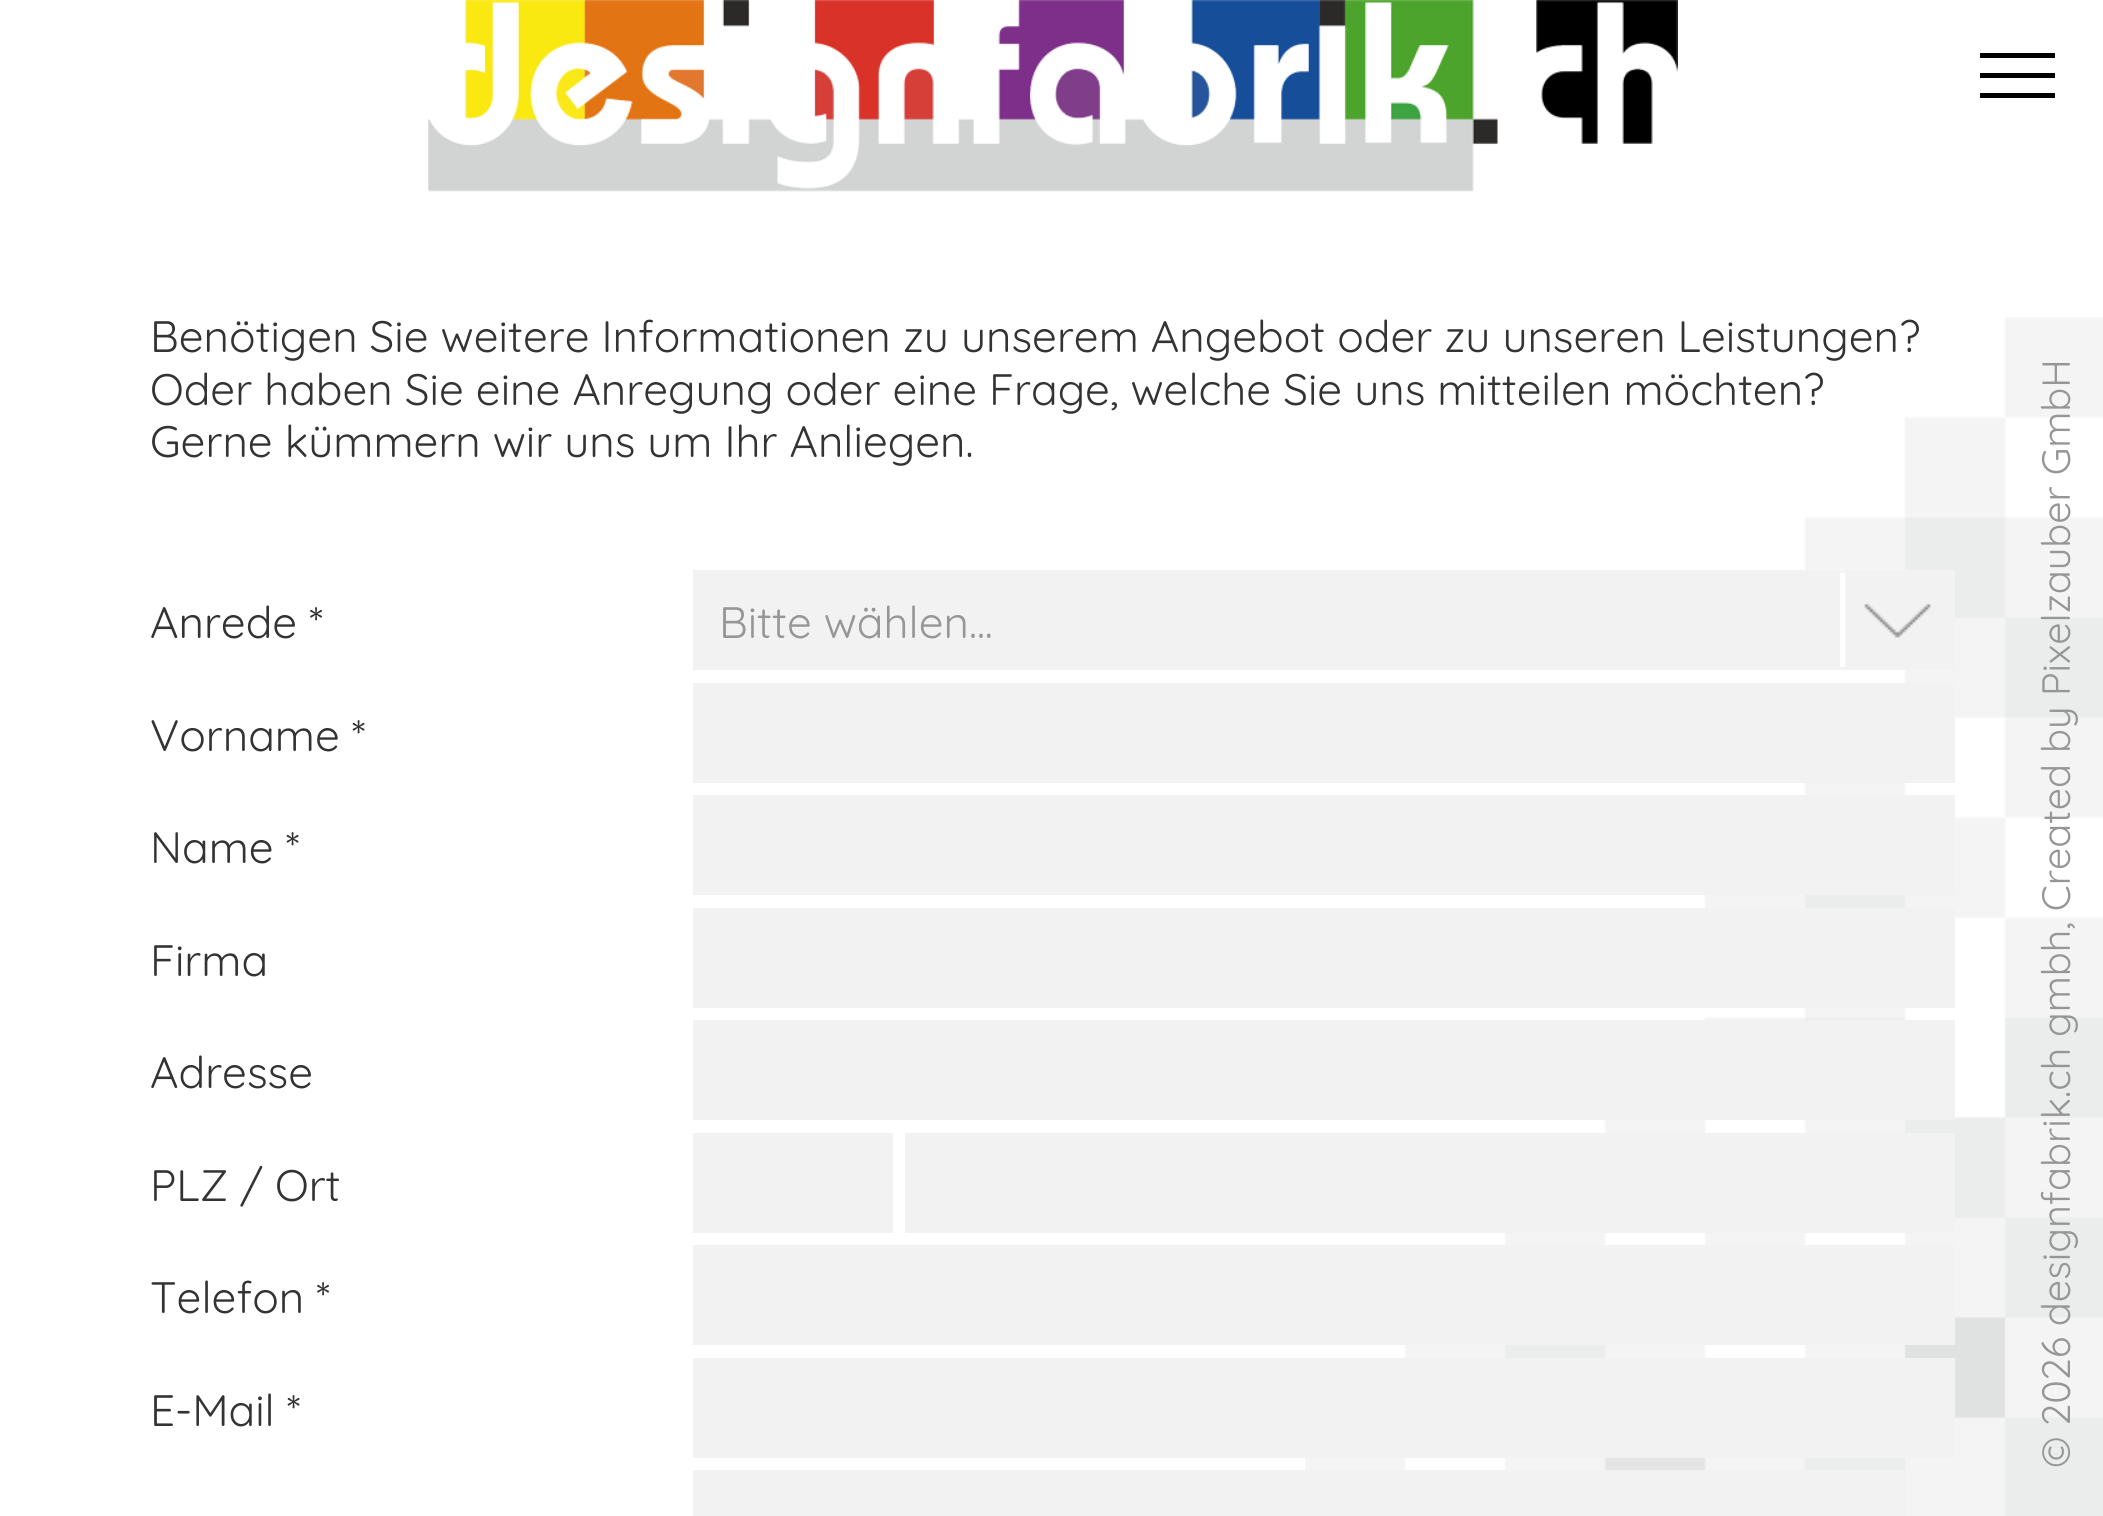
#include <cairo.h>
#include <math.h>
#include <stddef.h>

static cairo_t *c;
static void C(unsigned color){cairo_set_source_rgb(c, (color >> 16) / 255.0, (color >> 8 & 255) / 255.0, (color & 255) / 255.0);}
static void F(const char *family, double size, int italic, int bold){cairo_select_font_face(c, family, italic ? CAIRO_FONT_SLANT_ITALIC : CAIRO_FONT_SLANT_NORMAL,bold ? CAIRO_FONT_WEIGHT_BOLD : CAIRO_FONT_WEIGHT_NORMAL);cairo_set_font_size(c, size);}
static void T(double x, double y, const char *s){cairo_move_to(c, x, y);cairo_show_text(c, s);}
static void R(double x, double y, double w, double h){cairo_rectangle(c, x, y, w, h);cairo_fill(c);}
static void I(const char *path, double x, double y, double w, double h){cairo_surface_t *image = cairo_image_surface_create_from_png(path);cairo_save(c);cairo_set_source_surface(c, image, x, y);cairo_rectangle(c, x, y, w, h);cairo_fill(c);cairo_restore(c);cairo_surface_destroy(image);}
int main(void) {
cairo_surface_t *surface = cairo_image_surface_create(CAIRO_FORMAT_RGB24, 2103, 1516);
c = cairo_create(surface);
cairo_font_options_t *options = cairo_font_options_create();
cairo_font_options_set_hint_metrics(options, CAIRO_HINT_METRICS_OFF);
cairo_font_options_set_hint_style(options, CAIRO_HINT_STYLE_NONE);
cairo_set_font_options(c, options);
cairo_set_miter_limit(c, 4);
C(0xffffff);
cairo_paint(c);
I("1.png",1305,317,798,1199);
I("2.png",428,0,1250,192);
C(0x000000);
R(1980,73,75,5);
R(1980,53,75,5);
R(1980,93,75,5);
F("Quicksand",44,0,0);
C(0x333333);
T(150,352,"Benötigen Sie weitere Informationen zu unserem Angebot oder zu unseren Leistungen?");
T(150,405,"Oder haben Sie eine Anregung oder eine Frage, welche Sie uns mitteilen möchten?");
T(150,457,"Gerne kümmern wir uns um Ihr Anliegen.");
T(150,638,"Anrede *");
C(0xf2f2f2);
R(696,573,1256,94);
I("3.png",1840,569,91,98);
cairo_rectangle(c,694.5,571.5,1259,97);
cairo_set_line_width(c,3);
cairo_stroke(c);
C(0x969696);
T(719,638,"Bitte wählen...");
C(0x333333);
T(150,751,"Vorname *");
C(0xf2f2f2);
R(693,683,1262,100);
C(0x333333);
T(150,863,"Name *");
C(0xf2f2f2);
R(693,795,1262,100);
C(0x333333);
T(150,976,"Firma");
C(0xf2f2f2);
R(693,908,1262,100);
C(0x333333);
T(150,1088,"Adresse");
C(0xf2f2f2);
R(693,1020,1262,100);
C(0x333333);
T(150,1201,"PLZ / Ort");
C(0xf2f2f2);
R(693,1133,200,100);
R(905,1133,1050,100);
C(0x333333);
T(150,1313,"Telefon *");
C(0xf2f2f2);
R(693,1245,1262,100);
C(0x333333);
T(150,1426,"E-Mail *");
C(0xf2f2f2);
R(693,1358,1262,100);
R(693,1470,1212,46);
F("Quicksand",39.6,0,0);
C(0x969696);
cairo_save(c);
cairo_translate(c,2070,696);
cairo_rotate(c,-90 * M_PI / 180);
T(0,0,"Pixelzauber GmbH");
cairo_restore(c);
cairo_save(c);
cairo_translate(c,2070,1468);
cairo_rotate(c,-90 * M_PI / 180);
T(0,0,"© 2026 designfabrik.ch gmbh, Created by");
cairo_restore(c);
cairo_surface_write_to_png(surface, "o.png");
cairo_font_options_destroy(options);
cairo_destroy(c);
cairo_surface_destroy(surface);
return 0;
}
